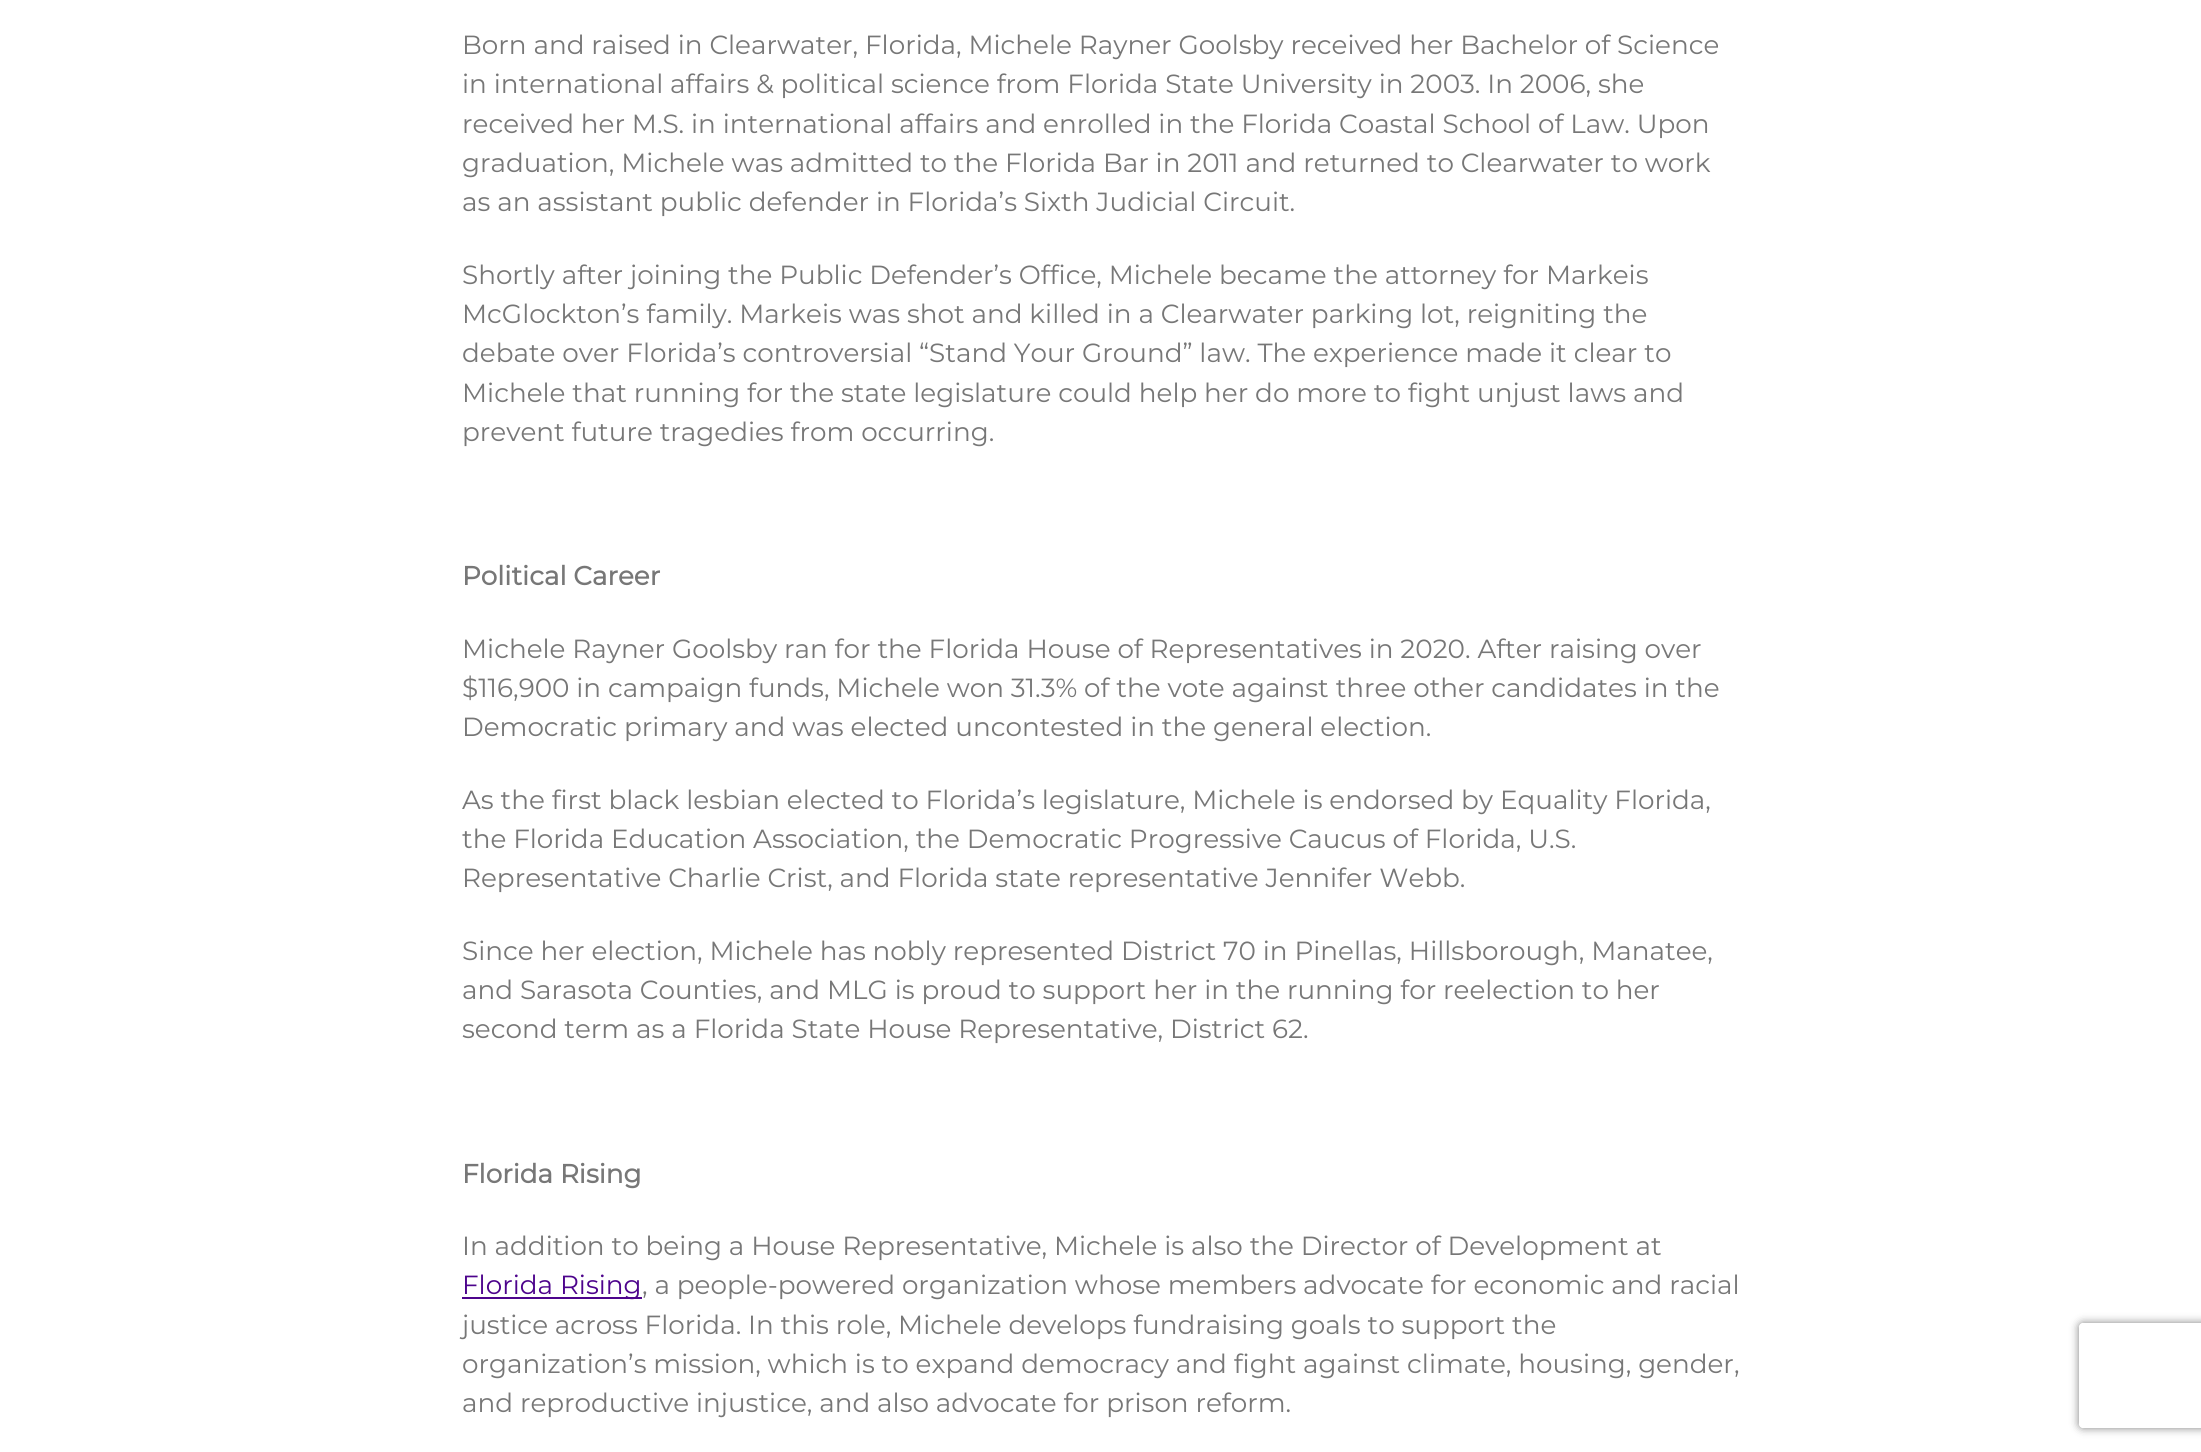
#include <cairo.h>
#include <math.h>
#include <stddef.h>

static cairo_t *c;
static void C(unsigned color){cairo_set_source_rgb(c, (color >> 16) / 255.0, (color >> 8 & 255) / 255.0, (color & 255) / 255.0);}
static void F(const char *family, double size, int italic, int bold){cairo_select_font_face(c, family, italic ? CAIRO_FONT_SLANT_ITALIC : CAIRO_FONT_SLANT_NORMAL,bold ? CAIRO_FONT_WEIGHT_BOLD : CAIRO_FONT_WEIGHT_NORMAL);cairo_set_font_size(c, size);}
static void T(double x, double y, const char *s){cairo_move_to(c, x, y);cairo_show_text(c, s);}
static void R(double x, double y, double w, double h){cairo_rectangle(c, x, y, w, h);cairo_fill(c);}
static void Q(double x, double y, double w, double h, double r){cairo_new_sub_path(c);cairo_arc(c, x + w - r, y + h - r, r, 0, M_PI / 2);cairo_arc(c, x + r, y + h - r, r, M_PI / 2, M_PI);cairo_arc(c, x + r, y + r, r, M_PI, 1.5 * M_PI);cairo_arc(c, x + w - r, y + r, r, 1.5 * M_PI, 2 * M_PI);cairo_close_path(c);}
static void S(double x, double y, double w, double h, double r, double blur, double alpha){cairo_push_group_with_content(c, CAIRO_CONTENT_ALPHA);cairo_set_operator(c, CAIRO_OPERATOR_SOURCE);for (int i = 15; i >= -15 && fmin(w, h) + blur * i / 3 > 0; i -= 2) {double e = blur * i / 6;cairo_set_source_rgba(c, 0, 0, 0, alpha * erfc((i - 1) / 8.5) / 2);Q(x - e, y - e, w + 2 * e, h + 2 * e, fmax(0, fmin(r + e + blur * .6, fmin(w, h) / 2 + e)));cairo_fill(c);}cairo_pattern_t *soft = cairo_pop_group(c);cairo_mask(c, soft);cairo_pattern_destroy(soft);}
int main(void) {
cairo_surface_t *surface = cairo_image_surface_create(CAIRO_FORMAT_RGB24, 2201, 1452);
c = cairo_create(surface);
cairo_font_options_t *options = cairo_font_options_create();
cairo_font_options_set_hint_metrics(options, CAIRO_HINT_METRICS_OFF);
cairo_font_options_set_hint_style(options, CAIRO_HINT_STYLE_NONE);
cairo_set_font_options(c, options);
cairo_set_miter_limit(c, 4);
C(0xffffff);
cairo_paint(c);
F("Montserrat Thin",26.25,0,0);
C(0x777777);
T(462,54,"Born and raised in Clearwater, Florida, Michele Rayner Goolsby received her Bachelor of Science");
T(462,93,"in international affairs & political science from Florida State University in 2003. In 2006, she");
T(462,133,"received her M.S. in international affairs and enrolled in the Florida Coastal School of Law. Upon");
T(462,172,"graduation, Michele was admitted to the Florida Bar in 2011 and returned to Clearwater to work");
T(462,211,"as an assistant public defender in Florida’s Sixth Judicial Circuit.");
T(462,284,"Shortly after joining the Public Defender’s Office, Michele became the attorney for Markeis");
T(462,323,"McGlockton’s family. Markeis was shot and killed in a Clearwater parking lot, reigniting the");
T(462,362,"debate over Florida’s controversial “Stand Your Ground” law. The experience made it clear to");
T(462,402,"Michele that running for the state legislature could help her do more to fight unjust laws and");
T(462,441,"prevent future tragedies from occurring.");
F("Montserrat",26.25,0,1);
T(462,585,"Political Career");
F("Montserrat Thin",26.25,0,0);
T(462,658,"Michele Rayner Goolsby ran for the Florida House of Representatives in 2020. After raising over");
T(462,697,"$116,900 in campaign funds, Michele won 31.3% of the vote against three other candidates in the");
T(462,736,"Democratic primary and was elected uncontested in the general election.");
T(462,809,"As the first black lesbian elected to Florida’s legislature, Michele is endorsed by Equality Florida,");
T(462,848,"the Florida Education Association, the Democratic Progressive Caucus of Florida, U.S.");
T(462,887,"Representative Charlie Crist, and Florida state representative Jennifer Webb.");
T(462,960,"Since her election, Michele has nobly represented District 70 in Pinellas, Hillsborough, Manatee,");
T(462,999,"and Sarasota Counties, and MLG is proud to support her in the running for reelection to her");
T(462,1038,"second term as a Florida State House Representative, District 62.");
F("Montserrat",26.25,0,1);
T(462,1183,"Florida Rising");
F("Montserrat Thin",26.25,0,0);
T(462,1255,"In addition to being a House Representative, Michele is also the Director of Development at");
C(0x4d048c);
R(462,1297,180,2);
T(462,1294,"Florida Rising");
C(0x777777);
T(642,1294,", a people-powered organization whose members advocate for economic and racial");
T(462,1334,"justice across Florida. In this role, Michele develops fundraising goals to support the");
T(462,1373,"organization’s mission, which is to expand democracy and fight against climate, housing, gender,");
T(462,1412,"and reproductive injustice, and also advocate for prison reform.");
cairo_save(c);
cairo_set_fill_rule(c,CAIRO_FILL_RULE_EVEN_ODD);
cairo_new_path(c);
cairo_move_to(c,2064,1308);
cairo_line_to(c,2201,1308);
cairo_line_to(c,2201,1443);
cairo_line_to(c,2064,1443);
cairo_close_path(c);
cairo_move_to(c,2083,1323);
cairo_line_to(c,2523,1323);
cairo_curve_to(c,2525,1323,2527,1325,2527,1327);
cairo_line_to(c,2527,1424);
cairo_curve_to(c,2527,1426,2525,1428,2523,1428);
cairo_line_to(c,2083,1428);
cairo_curve_to(c,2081,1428,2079,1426,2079,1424);
cairo_line_to(c,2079,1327);
cairo_curve_to(c,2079,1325,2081,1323,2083,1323);
cairo_close_path(c);
cairo_clip(c);
C(0x808080);
S(2079,1323,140,105,4,4.5,1);
cairo_restore(c);
cairo_surface_write_to_png(surface, "o.png");
cairo_font_options_destroy(options);
cairo_destroy(c);
cairo_surface_destroy(surface);
return 0;
}
